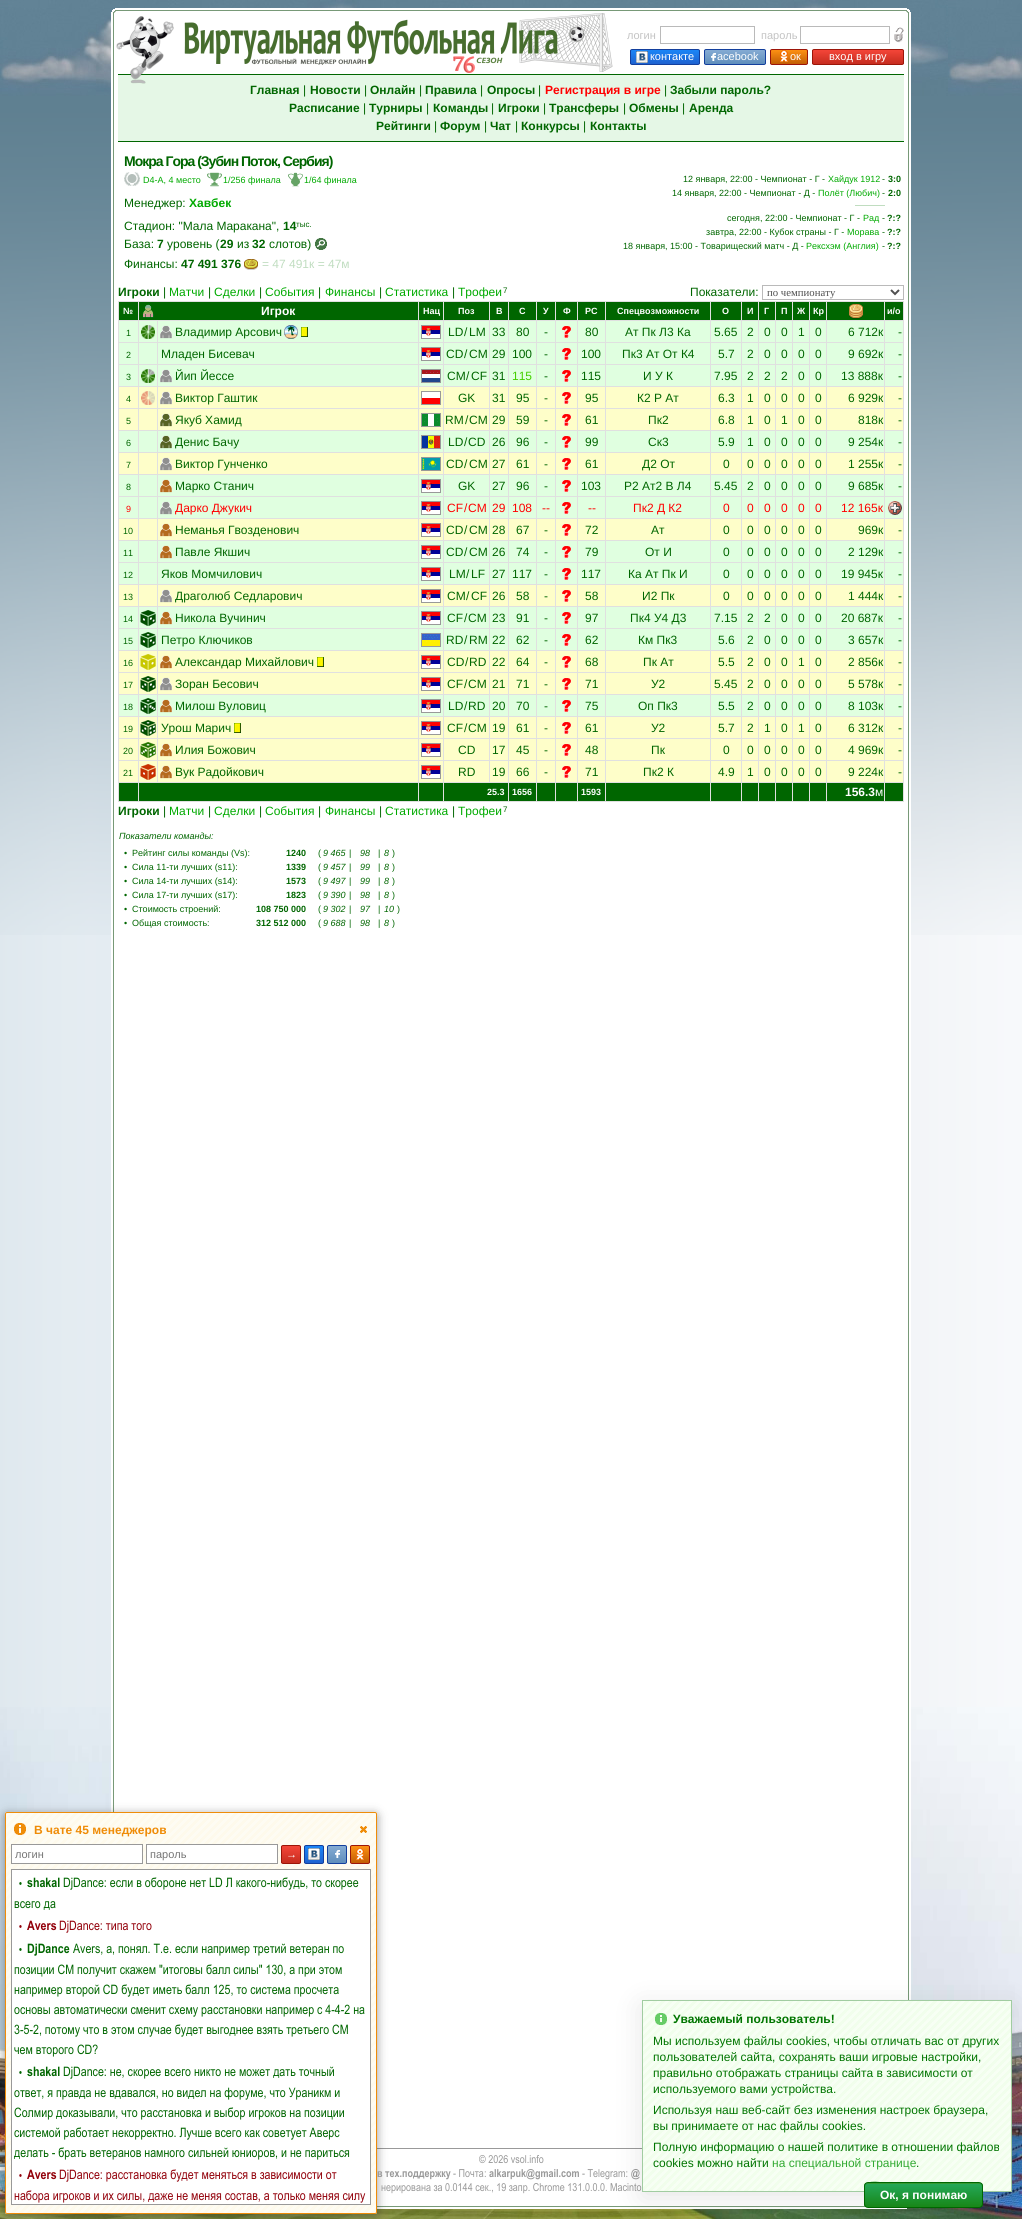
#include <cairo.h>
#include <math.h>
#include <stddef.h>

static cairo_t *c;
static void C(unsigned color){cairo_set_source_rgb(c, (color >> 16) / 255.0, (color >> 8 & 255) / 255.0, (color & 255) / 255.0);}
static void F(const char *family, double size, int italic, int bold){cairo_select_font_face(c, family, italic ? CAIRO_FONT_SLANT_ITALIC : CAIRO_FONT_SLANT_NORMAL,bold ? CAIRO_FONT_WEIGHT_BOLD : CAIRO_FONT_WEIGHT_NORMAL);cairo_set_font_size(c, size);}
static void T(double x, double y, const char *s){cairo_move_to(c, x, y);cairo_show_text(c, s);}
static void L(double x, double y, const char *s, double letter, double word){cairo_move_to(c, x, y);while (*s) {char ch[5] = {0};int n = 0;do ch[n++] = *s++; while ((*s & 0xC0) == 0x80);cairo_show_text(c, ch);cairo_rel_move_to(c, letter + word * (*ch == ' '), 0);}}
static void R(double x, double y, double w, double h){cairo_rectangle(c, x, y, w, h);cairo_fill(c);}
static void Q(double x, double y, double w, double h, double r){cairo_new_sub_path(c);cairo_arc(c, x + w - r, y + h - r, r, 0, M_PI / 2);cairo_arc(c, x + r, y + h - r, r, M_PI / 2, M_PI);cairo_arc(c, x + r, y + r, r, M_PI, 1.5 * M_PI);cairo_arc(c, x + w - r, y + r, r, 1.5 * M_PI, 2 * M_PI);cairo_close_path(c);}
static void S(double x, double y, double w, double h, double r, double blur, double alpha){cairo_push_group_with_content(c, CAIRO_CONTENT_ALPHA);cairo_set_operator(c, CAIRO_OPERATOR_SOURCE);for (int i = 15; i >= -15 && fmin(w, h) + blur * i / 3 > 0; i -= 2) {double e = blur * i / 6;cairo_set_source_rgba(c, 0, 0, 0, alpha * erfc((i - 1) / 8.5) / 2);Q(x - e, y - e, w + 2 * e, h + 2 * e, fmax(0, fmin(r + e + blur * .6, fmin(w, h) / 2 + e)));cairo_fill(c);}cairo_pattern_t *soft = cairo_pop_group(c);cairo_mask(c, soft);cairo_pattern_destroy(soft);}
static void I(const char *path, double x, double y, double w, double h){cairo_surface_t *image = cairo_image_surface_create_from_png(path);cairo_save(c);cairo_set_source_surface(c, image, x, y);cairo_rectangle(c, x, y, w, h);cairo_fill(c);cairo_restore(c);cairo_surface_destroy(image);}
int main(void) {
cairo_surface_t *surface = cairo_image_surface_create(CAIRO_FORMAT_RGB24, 1022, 2219);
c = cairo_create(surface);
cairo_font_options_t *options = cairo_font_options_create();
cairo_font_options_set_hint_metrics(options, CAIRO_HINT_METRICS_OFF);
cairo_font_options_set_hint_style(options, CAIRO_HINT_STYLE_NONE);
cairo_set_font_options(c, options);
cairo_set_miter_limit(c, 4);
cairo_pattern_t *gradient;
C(0xffffff);
cairo_paint(c);
I("1.png",0,935,1022,772);
I("2.png",0,0,1022,96);
I("3.png",111,8,5,5);
I("4.png",116,8,790,5);
I("5.png",906,8,5,5);
I("57.png",0,96,1022,839);
I("58.png",0,1707,1022,323);
I("6.png",111,13,5,1799);
I("59.png",0,2030,1022,189);
C(0xffffff);
R(116,13,790,2132);
I("7.png",906,13,5,1987);
C(0x006600);
R(118,74,786,1);
C(0xe5f7e6);
R(118,75,786,66);
I("8.png",116,16,58,68);
I("9.png",184,13,429,60);
F("Liberation Sans",11,0,0);
C(0xc3c3c3);
T(627,39,"логин");
cairo_rectangle(c,660.5,26.5,94,17);
C(0xbababa);
cairo_set_line_width(c,1);
cairo_stroke(c);
C(0xc3c3c3);
T(761,39,"пароль");
cairo_rectangle(c,800.5,26.5,89,17);
C(0xbababa);
cairo_stroke(c);
I("10.png",894,27,10,16);
cairo_save(c);
Q(630,49,70,16,2);
cairo_clip(c);
gradient = cairo_pattern_create_linear(665,50,665,64);
cairo_pattern_add_color_stop_rgba(gradient,.05,0.106,0.518,0.961,1);
cairo_pattern_add_color_stop_rgba(gradient,1,0.118,0.384,0.816,1);
cairo_set_source(c,gradient);
cairo_pattern_destroy(gradient);
R(630,50,70,14);
cairo_restore(c);
Q(630.5,49.5,69,15,1.5);
C(0x133f9d);
cairo_stroke(c);
I("11.png",636,51,12,12);
C(0xffffff);
T(650,60,"контакте");
cairo_save(c);
Q(704,49,62,16,2);
cairo_clip(c);
gradient = cairo_pattern_create_linear(735,50,735,64);
cairo_pattern_add_color_stop_rgba(gradient,.05,0.514,0.667,0.824,1);
cairo_pattern_add_color_stop_rgba(gradient,1,0.373,0.557,0.737,1);
cairo_set_source(c,gradient);
cairo_pattern_destroy(gradient);
R(704,50,62,14);
cairo_restore(c);
Q(704.5,49.5,61,15,1.5);
C(0x133f9d);
cairo_stroke(c);
I("12.png",711,53,5,8);
C(0xffffff);
T(717,60,"acebook");
cairo_save(c);
Q(770,49,38,16,2);
cairo_clip(c);
gradient = cairo_pattern_create_linear(789,50,789,64);
cairo_pattern_add_color_stop_rgba(gradient,.05,0.98,0.557,0.071,1);
cairo_pattern_add_color_stop_rgba(gradient,1,0.761,0.365,0.016,1);
cairo_set_source(c,gradient);
cairo_pattern_destroy(gradient);
R(770,50,38,14);
cairo_restore(c);
Q(770.5,49.5,37,15,1.5);
C(0x9c1509);
cairo_stroke(c);
I("13.png",780,50,8,12);
C(0xffffff);
T(790,60,"ок");
cairo_save(c);
Q(812,49,92,16,2);
cairo_clip(c);
gradient = cairo_pattern_create_linear(858,50,858,64);
cairo_pattern_add_color_stop_rgba(gradient,.05,0.949,0.267,0.216,1);
cairo_pattern_add_color_stop_rgba(gradient,1,0.776,0.176,0.122,1);
cairo_set_source(c,gradient);
cairo_pattern_destroy(gradient);
R(812,50,92,14);
cairo_restore(c);
Q(812.5,49.5,91,15,1.5);
C(0x9c1509);
cairo_stroke(c);
C(0xffffff);
T(829,60,"вход в игру");
C(0x006600);
R(118,141,786,1);
F("Liberation Sans",12,0,1);
T(250,94,"Главная");
F("Liberation Sans",12,0,0);
T(303,94,"|");
F("Liberation Sans",12,0,1);
T(310,94,"Новости");
F("Liberation Sans",12,0,0);
T(364,94,"|");
F("Liberation Sans",12,0,1);
T(370,94,"Онлайн");
F("Liberation Sans",12,0,0);
T(419,94,"|");
F("Liberation Sans",12,0,1);
T(425,94,"Правила");
F("Liberation Sans",12,0,0);
T(480,94,"|");
F("Liberation Sans",12,0,1);
T(487,94,"Опросы");
F("Liberation Sans",12,0,0);
T(538,94,"|");
F("Liberation Sans",12,0,1);
C(0xff0000);
T(545,94,"Регистрация в игре");
F("Liberation Sans",12,0,0);
C(0x006600);
T(664,94,"|");
F("Liberation Sans",12,0,1);
T(670,94,"Забыли пароль?");
T(289,112,"Расписание");
F("Liberation Sans",12,0,0);
T(363,112,"|");
F("Liberation Sans",12,0,1);
T(369,112,"Турниры");
F("Liberation Sans",12,0,0);
T(426,112,"|");
F("Liberation Sans",12,0,1);
T(433,112,"Команды");
F("Liberation Sans",12,0,0);
T(491,112,"|");
F("Liberation Sans",12,0,1);
T(498,112,"Игроки");
F("Liberation Sans",12,0,0);
T(543,112,"|");
F("Liberation Sans",12,0,1);
T(549,112,"Трансферы");
F("Liberation Sans",12,0,0);
T(623,112,"|");
F("Liberation Sans",12,0,1);
T(629,112,"Обмены");
F("Liberation Sans",12,0,0);
T(682,112,"|");
F("Liberation Sans",12,0,1);
T(689,112,"Аренда");
T(376,130,"Рейтинги");
F("Liberation Sans",12,0,0);
T(434,130,"|");
F("Liberation Sans",12,0,1);
T(440,130,"Форум");
F("Liberation Sans",12,0,0);
T(484,130,"|");
F("Liberation Sans",12,0,1);
T(490,130,"Чат");
F("Liberation Sans",12,0,0);
T(515,130,"|");
F("Liberation Sans",12,0,1);
T(521,130,"Конкурсы");
F("Liberation Sans",12,0,0);
T(583,130,"|");
F("Liberation Sans",12,0,1);
T(590,130,"Контакты");
F("Liberation Sans",14,0,1);
L(124,166,"Мокра Гора (Зубин Поток, Сербия)",-1,0);
I("14.png",124,172,16,14);
F("Liberation Sans",9,0,0);
C(0x00aa00);
T(143,183,"D4-A, 4 место");
I("15.png",207,172,15,15);
T(223,183,"1/256 финала");
I("16.png",288,172,15,15);
T(304,183,"1/64 финала");
F("Liberation Sans",12,0,0);
C(0x006600);
T(124,207,"Менеджер:");
F("Liberation Sans",12,0,1);
C(0x00aa00);
T(189,207,"Хавбек");
F("Liberation Sans",12,0,0);
C(0x006600);
T(124,230,"Стадион: \"Мала Маракана\",");
F("Liberation Sans",12,0,1);
T(283,230,"14");
F("Liberation Sans",8,0,0);
T(296,227,"тыс.");
F("Liberation Sans",12,0,0);
T(124,248,"База:");
F("Liberation Sans",12,0,1);
T(157,248,"7");
F("Liberation Sans",12,0,0);
T(167,248,"уровень (");
F("Liberation Sans",12,0,1);
T(220,248,"29");
F("Liberation Sans",12,0,0);
T(237,248,"из");
F("Liberation Sans",12,0,1);
T(252,248,"32");
F("Liberation Sans",12,0,0);
T(269,248,"слотов)");
I("17.png",315,238,12,12);
T(124,268,"Финансы:");
F("Liberation Sans",12,0,1);
T(181,268,"47 491 376");
I("18.png",244,259,14,11);
F("Liberation Sans",12,0,0);
C(0xc0ddc0);
T(262,268,"= 47 491к = 47м");
F("Liberation Sans",9,0,0);
C(0x006600);
T(683,182,"12 января, 22:00 - Чемпионат - Г -");
C(0x00aa00);
T(828,182,"Хайдук 1912");
C(0x006600);
T(882,182,"-");
F("Liberation Sans",9,0,1);
T(888,182,"3:0");
F("Liberation Sans",9,0,0);
T(672,196,"14 января, 22:00 - Чемпионат - Д -");
C(0x00aa00);
T(818,196,"Полёт (Любич)");
C(0x006600);
T(882,196,"-");
F("Liberation Sans",9,0,1);
T(888,196,"2:0");
C(0xc0ddc0);
R(855,205,30,1);
F("Liberation Sans",9,0,0);
C(0x006600);
T(727,221,"сегодня, 22:00 - Чемпионат - Г -");
C(0x00aa00);
T(863,221,"Рад");
C(0x006600);
T(882,221,"-");
F("Liberation Sans",9,0,1);
T(887,221,"?:?");
F("Liberation Sans",9,0,0);
T(706,235,"завтра, 22:00 - Кубок страны - Г -");
C(0x00aa00);
T(847,235,"Морава");
C(0x006600);
T(882,235,"-");
F("Liberation Sans",9,0,1);
T(887,235,"?:?");
F("Liberation Sans",9,0,0);
T(623,249,"18 января, 15:00 - Товарищеский матч - Д -");
C(0x00aa00);
T(806,249,"Рексхэм (Англия)");
C(0x006600);
T(882,249,"-");
F("Liberation Sans",9,0,1);
T(887,249,"?:?");
F("Liberation Sans",12,0,1);
T(118,296,"Игроки");
F("Liberation Sans",12,0,0);
T(163,296,"|");
C(0x00aa00);
T(169,296,"Матчи");
C(0x006600);
T(208,296,"|");
C(0x00aa00);
T(214,296,"Сделки");
C(0x006600);
T(259,296,"|");
C(0x00aa00);
T(265,296,"События");
C(0x006600);
T(318,296,"|");
C(0x00aa00);
T(325,296,"Финансы");
C(0x006600);
T(379,296,"|");
C(0x00aa00);
T(385,296,"Статистика");
C(0x006600);
T(452,296,"|");
C(0x00aa00);
T(458,296,"Трофеи");
F("Liberation Sans",8,0,0);
C(0x006600);
T(503,293,"7");
F("Liberation Sans",12,0,0);
T(690,296,"Показатели:");
cairo_rectangle(c,762.5,285.5,141,14);
C(0xbababa);
cairo_stroke(c);
cairo_new_path(c);
cairo_move_to(c,891,290);
cairo_line_to(c,895,294);
cairo_line_to(c,899,290);
C(0x505050);
cairo_set_line_width(c,2);
cairo_stroke(c);
F("Liberation Serif",10.75,0,0);
T(767,296,"по чемпионату");
C(0xe0e0e0);
R(118,301,786,1);
R(903,301,1,501);
R(118,801,786,1);
R(118,301,1,501);
C(0x006600);
R(119,302,784,18);
F("Liberation Sans",9,0,1);
C(0xffffff);
T(123,314,"№");
C(0xe0e0e0);
R(884,320,20,1);
C(0xe0ffe0);
R(119,321,784,21);
C(0xe0e0e0);
R(884,342,20,1);
C(0xe0ffe0);
R(119,343,784,21);
C(0xe0e0e0);
R(884,364,20,1);
C(0xe0ffe0);
R(119,365,784,21);
C(0xe0e0e0);
R(884,386,20,1);
C(0xfefec9);
R(119,387,784,21);
C(0xe0e0e0);
R(884,408,20,1);
C(0xfefec9);
R(119,409,784,21);
C(0xe0e0e0);
R(884,430,20,1);
C(0xe0ffe0);
R(119,431,784,21);
C(0xe0e0e0);
R(884,452,20,1);
C(0xfefec9);
R(119,453,784,21);
C(0xe0e0e0);
R(884,474,20,1);
C(0xe0ffe0);
R(119,475,784,21);
C(0xe0e0e0);
R(884,496,20,1);
C(0xe0ffe0);
R(119,497,784,21);
C(0xe0e0e0);
R(884,518,20,1);
C(0xfefec9);
R(119,519,784,21);
C(0xe0e0e0);
R(884,540,20,1);
C(0xe0ffe0);
R(119,541,784,21);
C(0xe0e0e0);
R(884,562,20,1);
C(0xe0ffe0);
R(119,563,784,21);
C(0xe0e0e0);
R(884,584,20,1);
C(0xfefec9);
R(119,585,784,21);
C(0xe0e0e0);
R(884,606,20,1);
C(0xe0ffe0);
R(119,607,784,21);
C(0xe0e0e0);
R(884,628,20,1);
C(0xe0ffe0);
R(119,629,784,21);
C(0xe0e0e0);
R(884,650,20,1);
C(0xfefec9);
R(119,651,784,21);
C(0xe0e0e0);
R(884,672,20,1);
C(0xfefec9);
R(119,673,784,21);
C(0xe0e0e0);
R(884,694,20,1);
C(0xe0ffe0);
R(119,695,784,21);
C(0xe0e0e0);
R(884,716,20,1);
C(0xfefec9);
R(119,717,784,21);
C(0xe0e0e0);
R(884,738,20,1);
C(0xfefec9);
R(119,739,784,21);
C(0xe0e0e0);
R(884,760,20,1);
C(0xfefec9);
R(119,761,784,21);
C(0xe0e0e0);
R(884,782,20,1);
C(0x006600);
R(119,783,784,18);
C(0xe0e0e0);
R(884,782,1,20);
R(826,782,59,1);
R(884,760,1,23);
R(826,760,59,1);
R(884,738,1,23);
R(826,738,59,1);
R(884,716,1,23);
R(826,716,59,1);
R(884,694,1,23);
R(826,694,59,1);
R(884,672,1,23);
R(826,672,59,1);
R(884,650,1,23);
R(826,650,59,1);
R(884,628,1,23);
R(826,628,59,1);
R(884,606,1,23);
R(826,606,59,1);
R(884,584,1,23);
R(826,584,59,1);
R(884,562,1,23);
R(826,562,59,1);
R(884,540,1,23);
R(826,540,59,1);
R(884,518,1,23);
R(826,518,59,1);
R(884,496,1,23);
R(826,496,59,1);
R(884,474,1,23);
R(826,474,59,1);
R(884,452,1,23);
R(826,452,59,1);
R(884,430,1,23);
R(826,430,59,1);
R(884,408,1,23);
R(826,408,59,1);
R(884,386,1,23);
R(826,386,59,1);
R(884,364,1,23);
R(826,364,59,1);
R(884,342,1,23);
R(826,342,59,1);
R(884,320,1,23);
R(826,320,59,1);
R(826,782,1,20);
R(809,782,18,1);
R(826,760,1,23);
R(809,760,18,1);
R(826,738,1,23);
R(809,738,18,1);
R(826,716,1,23);
R(809,716,18,1);
R(826,694,1,23);
R(809,694,18,1);
R(826,672,1,23);
R(809,672,18,1);
R(826,650,1,23);
R(809,650,18,1);
R(826,628,1,23);
R(809,628,18,1);
R(826,606,1,23);
R(809,606,18,1);
R(826,584,1,23);
R(809,584,18,1);
R(826,562,1,23);
R(809,562,18,1);
R(826,540,1,23);
R(809,540,18,1);
R(826,518,1,23);
R(809,518,18,1);
R(826,496,1,23);
R(809,496,18,1);
R(826,474,1,23);
R(809,474,18,1);
R(826,452,1,23);
R(809,452,18,1);
R(826,430,1,23);
R(809,430,18,1);
R(826,408,1,23);
R(809,408,18,1);
R(826,386,1,23);
R(809,386,18,1);
R(826,364,1,23);
R(809,364,18,1);
R(826,342,1,23);
R(809,342,18,1);
R(826,320,1,23);
R(809,320,18,1);
R(809,782,1,20);
R(792,782,18,1);
R(809,760,1,23);
R(792,760,18,1);
R(809,738,1,23);
R(792,738,18,1);
R(809,716,1,23);
R(792,716,18,1);
R(809,694,1,23);
R(792,694,18,1);
R(809,672,1,23);
R(792,672,18,1);
R(809,650,1,23);
R(792,650,18,1);
R(809,628,1,23);
R(792,628,18,1);
R(809,606,1,23);
R(792,606,18,1);
R(809,584,1,23);
R(792,584,18,1);
R(809,562,1,23);
R(792,562,18,1);
R(809,540,1,23);
R(792,540,18,1);
R(809,518,1,23);
R(792,518,18,1);
R(809,496,1,23);
R(792,496,18,1);
R(809,474,1,23);
R(792,474,18,1);
R(809,452,1,23);
R(792,452,18,1);
R(809,430,1,23);
R(792,430,18,1);
R(809,408,1,23);
R(792,408,18,1);
R(809,386,1,23);
R(792,386,18,1);
R(809,364,1,23);
R(792,364,18,1);
R(809,342,1,23);
R(792,342,18,1);
R(809,320,1,23);
R(792,320,18,1);
R(792,782,1,20);
R(775,782,18,1);
R(792,760,1,23);
R(775,760,18,1);
R(792,738,1,23);
R(775,738,18,1);
R(792,716,1,23);
R(775,716,18,1);
R(792,694,1,23);
R(775,694,18,1);
R(792,672,1,23);
R(775,672,18,1);
R(792,650,1,23);
R(775,650,18,1);
R(792,628,1,23);
R(775,628,18,1);
R(792,606,1,23);
R(775,606,18,1);
R(792,584,1,23);
R(775,584,18,1);
R(792,562,1,23);
R(775,562,18,1);
R(792,540,1,23);
R(775,540,18,1);
R(792,518,1,23);
R(775,518,18,1);
R(792,496,1,23);
R(775,496,18,1);
R(792,474,1,23);
R(775,474,18,1);
R(792,452,1,23);
R(775,452,18,1);
R(792,430,1,23);
R(775,430,18,1);
R(792,408,1,23);
R(775,408,18,1);
R(792,386,1,23);
R(775,386,18,1);
R(792,364,1,23);
R(775,364,18,1);
R(792,342,1,23);
R(775,342,18,1);
R(792,320,1,23);
R(775,320,18,1);
R(775,782,1,20);
R(758,782,18,1);
R(775,760,1,23);
R(758,760,18,1);
R(775,738,1,23);
R(758,738,18,1);
R(775,716,1,23);
R(758,716,18,1);
R(775,694,1,23);
R(758,694,18,1);
R(775,672,1,23);
R(758,672,18,1);
R(775,650,1,23);
R(758,650,18,1);
R(775,628,1,23);
R(758,628,18,1);
R(775,606,1,23);
R(758,606,18,1);
R(775,584,1,23);
R(758,584,18,1);
R(775,562,1,23);
R(758,562,18,1);
R(775,540,1,23);
R(758,540,18,1);
R(775,518,1,23);
R(758,518,18,1);
R(775,496,1,23);
R(758,496,18,1);
R(775,474,1,23);
R(758,474,18,1);
R(775,452,1,23);
R(758,452,18,1);
R(775,430,1,23);
R(758,430,18,1);
R(775,408,1,23);
R(758,408,18,1);
R(775,386,1,23);
R(758,386,18,1);
R(775,364,1,23);
R(758,364,18,1);
R(775,342,1,23);
R(758,342,18,1);
R(775,320,1,23);
R(758,320,18,1);
R(758,782,1,20);
R(741,782,18,1);
R(758,760,1,23);
R(741,760,18,1);
R(758,738,1,23);
R(741,738,18,1);
R(758,716,1,23);
R(741,716,18,1);
R(758,694,1,23);
R(741,694,18,1);
R(758,672,1,23);
R(741,672,18,1);
R(758,650,1,23);
R(741,650,18,1);
R(758,628,1,23);
R(741,628,18,1);
R(758,606,1,23);
R(741,606,18,1);
R(758,584,1,23);
R(741,584,18,1);
R(758,562,1,23);
R(741,562,18,1);
R(758,540,1,23);
R(741,540,18,1);
R(758,518,1,23);
R(741,518,18,1);
R(758,496,1,23);
R(741,496,18,1);
R(758,474,1,23);
R(741,474,18,1);
R(758,452,1,23);
R(741,452,18,1);
R(758,430,1,23);
R(741,430,18,1);
R(758,408,1,23);
R(741,408,18,1);
R(758,386,1,23);
R(741,386,18,1);
R(758,364,1,23);
R(741,364,18,1);
R(758,342,1,23);
R(741,342,18,1);
R(758,320,1,23);
R(741,320,18,1);
R(741,782,1,20);
R(710,782,32,1);
R(741,760,1,23);
R(710,760,32,1);
R(741,738,1,23);
R(710,738,32,1);
R(741,716,1,23);
R(710,716,32,1);
R(741,694,1,23);
R(710,694,32,1);
R(741,672,1,23);
R(710,672,32,1);
R(741,650,1,23);
R(710,650,32,1);
R(741,628,1,23);
R(710,628,32,1);
R(741,606,1,23);
R(710,606,32,1);
R(741,584,1,23);
R(710,584,32,1);
R(741,562,1,23);
R(710,562,32,1);
R(741,540,1,23);
R(710,540,32,1);
R(741,518,1,23);
R(710,518,32,1);
R(741,496,1,23);
R(710,496,32,1);
R(741,474,1,23);
R(710,474,32,1);
R(741,452,1,23);
R(710,452,32,1);
R(741,430,1,23);
R(710,430,32,1);
R(741,408,1,23);
R(710,408,32,1);
R(741,386,1,23);
R(710,386,32,1);
R(741,364,1,23);
R(710,364,32,1);
R(741,342,1,23);
R(710,342,32,1);
R(741,320,1,23);
R(710,320,32,1);
R(710,782,1,20);
R(605,782,106,1);
R(710,760,1,23);
R(605,760,106,1);
R(710,738,1,23);
R(605,738,106,1);
R(710,716,1,23);
R(605,716,106,1);
R(710,694,1,23);
R(605,694,106,1);
R(710,672,1,23);
R(605,672,106,1);
R(710,650,1,23);
R(605,650,106,1);
R(710,628,1,23);
R(605,628,106,1);
R(710,606,1,23);
R(605,606,106,1);
R(710,584,1,23);
R(605,584,106,1);
R(710,562,1,23);
R(605,562,106,1);
R(710,540,1,23);
R(605,540,106,1);
R(710,518,1,23);
R(605,518,106,1);
R(710,496,1,23);
R(605,496,106,1);
R(710,474,1,23);
R(605,474,106,1);
R(710,452,1,23);
R(605,452,106,1);
R(710,430,1,23);
R(605,430,106,1);
R(710,408,1,23);
R(605,408,106,1);
R(710,386,1,23);
R(605,386,106,1);
R(710,364,1,23);
R(605,364,106,1);
R(710,342,1,23);
R(605,342,106,1);
R(710,320,1,23);
R(605,320,106,1);
R(605,782,1,20);
R(577,782,29,1);
R(605,760,1,23);
R(577,760,29,1);
R(605,738,1,23);
R(577,738,29,1);
R(605,716,1,23);
R(577,716,29,1);
R(605,694,1,23);
R(577,694,29,1);
R(605,672,1,23);
R(577,672,29,1);
R(605,650,1,23);
R(577,650,29,1);
R(605,628,1,23);
R(577,628,29,1);
R(605,606,1,23);
R(577,606,29,1);
R(605,584,1,23);
R(577,584,29,1);
R(605,562,1,23);
R(577,562,29,1);
R(605,540,1,23);
R(577,540,29,1);
R(605,518,1,23);
R(577,518,29,1);
R(605,496,1,23);
R(577,496,29,1);
R(605,474,1,23);
R(577,474,29,1);
R(605,452,1,23);
R(577,452,29,1);
R(605,430,1,23);
R(577,430,29,1);
R(605,408,1,23);
R(577,408,29,1);
R(605,386,1,23);
R(577,386,29,1);
R(605,364,1,23);
R(577,364,29,1);
R(605,342,1,23);
R(577,342,29,1);
R(605,320,1,23);
R(577,320,29,1);
R(577,782,1,20);
R(555,782,23,1);
R(577,760,1,23);
R(555,760,23,1);
R(577,738,1,23);
R(555,738,23,1);
R(577,716,1,23);
R(555,716,23,1);
R(577,694,1,23);
R(555,694,23,1);
R(577,672,1,23);
R(555,672,23,1);
R(577,650,1,23);
R(555,650,23,1);
R(577,628,1,23);
R(555,628,23,1);
R(577,606,1,23);
R(555,606,23,1);
R(577,584,1,23);
R(555,584,23,1);
R(577,562,1,23);
R(555,562,23,1);
R(577,540,1,23);
R(555,540,23,1);
R(577,518,1,23);
R(555,518,23,1);
R(577,496,1,23);
R(555,496,23,1);
R(577,474,1,23);
R(555,474,23,1);
R(577,452,1,23);
R(555,452,23,1);
R(577,430,1,23);
R(555,430,23,1);
R(577,408,1,23);
R(555,408,23,1);
R(577,386,1,23);
R(555,386,23,1);
R(577,364,1,23);
R(555,364,23,1);
R(577,342,1,23);
R(555,342,23,1);
R(577,320,1,23);
R(555,320,23,1);
R(555,782,1,20);
R(536,782,20,1);
R(555,760,1,23);
R(536,760,20,1);
R(555,738,1,23);
R(536,738,20,1);
R(555,716,1,23);
R(536,716,20,1);
R(555,694,1,23);
R(536,694,20,1);
R(555,672,1,23);
R(536,672,20,1);
R(555,650,1,23);
R(536,650,20,1);
R(555,628,1,23);
R(536,628,20,1);
R(555,606,1,23);
R(536,606,20,1);
R(555,584,1,23);
R(536,584,20,1);
R(555,562,1,23);
R(536,562,20,1);
R(555,540,1,23);
R(536,540,20,1);
R(555,518,1,23);
R(536,518,20,1);
R(555,496,1,23);
R(536,496,20,1);
R(555,474,1,23);
R(536,474,20,1);
R(555,452,1,23);
R(536,452,20,1);
R(555,430,1,23);
R(536,430,20,1);
R(555,408,1,23);
R(536,408,20,1);
R(555,386,1,23);
R(536,386,20,1);
R(555,364,1,23);
R(536,364,20,1);
R(555,342,1,23);
R(536,342,20,1);
R(555,320,1,23);
R(536,320,20,1);
R(536,782,1,20);
R(508,782,29,1);
R(536,760,1,23);
R(508,760,29,1);
R(536,738,1,23);
R(508,738,29,1);
R(536,716,1,23);
R(508,716,29,1);
R(536,694,1,23);
R(508,694,29,1);
R(536,672,1,23);
R(508,672,29,1);
R(536,650,1,23);
R(508,650,29,1);
R(536,628,1,23);
R(508,628,29,1);
R(536,606,1,23);
R(508,606,29,1);
R(536,584,1,23);
R(508,584,29,1);
R(536,562,1,23);
R(508,562,29,1);
R(536,540,1,23);
R(508,540,29,1);
R(536,518,1,23);
R(508,518,29,1);
R(536,496,1,23);
R(508,496,29,1);
R(536,474,1,23);
R(508,474,29,1);
R(536,452,1,23);
R(508,452,29,1);
R(536,430,1,23);
R(508,430,29,1);
R(536,408,1,23);
R(508,408,29,1);
R(536,386,1,23);
R(508,386,29,1);
R(536,364,1,23);
R(508,364,29,1);
R(536,342,1,23);
R(508,342,29,1);
R(536,320,1,23);
R(508,320,29,1);
R(508,782,1,20);
R(443,782,66,1);
R(508,760,1,23);
R(489,760,20,1);
R(508,738,1,23);
R(489,738,20,1);
R(508,716,1,23);
R(489,716,20,1);
R(508,694,1,23);
R(489,694,20,1);
R(508,672,1,23);
R(489,672,20,1);
R(508,650,1,23);
R(489,650,20,1);
R(508,628,1,23);
R(489,628,20,1);
R(508,606,1,23);
R(489,606,20,1);
R(508,584,1,23);
R(489,584,20,1);
R(508,562,1,23);
R(489,562,20,1);
R(508,540,1,23);
R(489,540,20,1);
R(508,518,1,23);
R(489,518,20,1);
R(508,496,1,23);
R(489,496,20,1);
R(508,474,1,23);
R(489,474,20,1);
R(508,452,1,23);
R(489,452,20,1);
R(508,430,1,23);
R(489,430,20,1);
R(508,408,1,23);
R(489,408,20,1);
R(508,386,1,23);
R(489,386,20,1);
R(508,364,1,23);
R(489,364,20,1);
R(508,342,1,23);
R(489,342,20,1);
R(508,320,1,23);
R(489,320,20,1);
R(489,760,1,23);
R(443,760,47,1);
R(489,738,1,23);
R(443,738,47,1);
R(489,716,1,23);
R(443,716,47,1);
R(489,694,1,23);
R(443,694,47,1);
R(489,672,1,23);
R(443,672,47,1);
R(489,650,1,23);
R(443,650,47,1);
R(489,628,1,23);
R(443,628,47,1);
R(489,606,1,23);
R(443,606,47,1);
R(489,584,1,23);
R(443,584,47,1);
R(489,562,1,23);
R(443,562,47,1);
R(489,540,1,23);
R(443,540,47,1);
R(489,518,1,23);
R(443,518,47,1);
R(489,496,1,23);
R(443,496,47,1);
R(489,474,1,23);
R(443,474,47,1);
R(489,452,1,23);
R(443,452,47,1);
R(489,430,1,23);
R(443,430,47,1);
R(489,408,1,23);
R(443,408,47,1);
R(489,386,1,23);
R(443,386,47,1);
R(489,364,1,23);
R(443,364,47,1);
R(489,342,1,23);
R(443,342,47,1);
R(489,320,1,23);
R(443,320,47,1);
R(443,782,1,20);
R(418,782,26,1);
R(443,760,1,23);
R(418,760,26,1);
R(443,738,1,23);
R(418,738,26,1);
R(443,716,1,23);
R(418,716,26,1);
R(443,694,1,23);
R(418,694,26,1);
R(443,672,1,23);
R(418,672,26,1);
R(443,650,1,23);
R(418,650,26,1);
R(443,628,1,23);
R(418,628,26,1);
R(443,606,1,23);
R(418,606,26,1);
R(443,584,1,23);
R(418,584,26,1);
R(443,562,1,23);
R(418,562,26,1);
R(443,540,1,23);
R(418,540,26,1);
R(443,518,1,23);
R(418,518,26,1);
R(443,496,1,23);
R(418,496,26,1);
R(443,474,1,23);
R(418,474,26,1);
R(443,452,1,23);
R(418,452,26,1);
R(443,430,1,23);
R(418,430,26,1);
R(443,408,1,23);
R(418,408,26,1);
R(443,386,1,23);
R(418,386,26,1);
R(443,364,1,23);
R(418,364,26,1);
R(443,342,1,23);
R(418,342,26,1);
R(443,320,1,23);
R(418,320,26,1);
R(418,782,1,20);
R(138,782,281,1);
R(418,760,1,23);
R(157,760,262,1);
R(418,738,1,23);
R(157,738,262,1);
R(418,716,1,23);
R(157,716,262,1);
R(418,694,1,23);
R(157,694,262,1);
R(418,672,1,23);
R(157,672,262,1);
R(418,650,1,23);
R(157,650,262,1);
R(418,628,1,23);
R(157,628,262,1);
R(418,606,1,23);
R(157,606,262,1);
R(418,584,1,23);
R(157,584,262,1);
R(418,562,1,23);
R(157,562,262,1);
R(418,540,1,23);
R(157,540,262,1);
R(418,518,1,23);
R(157,518,262,1);
R(418,496,1,23);
R(157,496,262,1);
R(418,474,1,23);
R(157,474,262,1);
R(418,452,1,23);
R(157,452,262,1);
R(418,430,1,23);
R(157,430,262,1);
R(418,408,1,23);
R(157,408,262,1);
R(418,386,1,23);
R(157,386,262,1);
R(418,364,1,23);
R(157,364,262,1);
R(418,342,1,23);
R(157,342,262,1);
R(418,320,1,23);
R(157,320,262,1);
R(157,760,1,23);
R(138,760,20,1);
R(157,738,1,23);
R(138,738,20,1);
R(157,716,1,23);
R(138,716,20,1);
R(157,694,1,23);
R(138,694,20,1);
R(157,672,1,23);
R(138,672,20,1);
R(157,650,1,23);
R(138,650,20,1);
R(157,628,1,23);
R(138,628,20,1);
R(157,606,1,23);
R(138,606,20,1);
R(157,584,1,23);
R(138,584,20,1);
R(157,562,1,23);
R(138,562,20,1);
R(157,540,1,23);
R(138,540,20,1);
R(157,518,1,23);
R(138,518,20,1);
R(157,496,1,23);
R(138,496,20,1);
R(157,474,1,23);
R(138,474,20,1);
R(157,452,1,23);
R(138,452,20,1);
R(157,430,1,23);
R(138,430,20,1);
R(157,408,1,23);
R(138,408,20,1);
R(157,386,1,23);
R(157,364,1,23);
R(138,364,20,1);
R(157,342,1,23);
R(138,342,20,1);
R(157,320,1,23);
R(138,320,20,1);
R(118,386,21,1);
R(138,782,1,20);
R(118,782,21,1);
R(138,760,1,23);
R(118,760,21,1);
R(138,738,1,23);
R(118,738,21,1);
R(138,716,1,23);
R(118,716,21,1);
R(138,694,1,23);
R(118,694,21,1);
R(138,672,1,23);
R(118,672,21,1);
R(138,650,1,23);
R(118,650,21,1);
R(138,628,1,23);
R(118,628,21,1);
R(138,606,1,23);
R(118,606,21,1);
R(138,584,1,23);
R(118,584,21,1);
R(138,562,1,23);
R(118,562,21,1);
R(138,540,1,23);
R(118,540,21,1);
R(138,518,1,23);
R(118,518,21,1);
R(138,496,1,23);
R(118,496,21,1);
R(138,474,1,23);
R(118,474,21,1);
R(138,452,1,23);
R(118,452,21,1);
R(138,430,1,23);
R(118,430,21,1);
R(138,408,1,23);
R(118,408,21,1);
R(138,386,1,23);
R(138,386,20,1);
R(138,364,1,23);
R(118,364,21,1);
R(138,342,1,23);
R(118,342,21,1);
R(138,320,1,23);
R(118,320,21,1);
R(138,301,1,20);
I("19.png",143,304,11,14);
F("Liberation Sans",12,0,1);
C(0xffffff);
T(261,315,"Игрок");
C(0xe0e0e0);
R(418,301,1,20);
F("Liberation Sans",9,0,1);
C(0xffffff);
T(423,314,"Нац");
C(0xe0e0e0);
R(443,301,1,20);
C(0xffffff);
T(458,314,"Поз");
C(0xe0e0e0);
R(489,301,1,20);
C(0xffffff);
T(496,314,"В");
C(0xe0e0e0);
R(508,301,1,20);
C(0xffffff);
T(519,314,"С");
C(0xe0e0e0);
R(536,301,1,20);
C(0xffffff);
T(543,314,"У");
C(0xe0e0e0);
R(555,301,1,20);
C(0xffffff);
T(563,314,"Ф");
C(0xe0e0e0);
R(577,301,1,20);
C(0xffffff);
T(585,314,"РС");
C(0xe0e0e0);
R(605,301,1,20);
C(0xffffff);
T(617,314,"Спецвозможности");
C(0xe0e0e0);
R(710,301,1,20);
C(0xffffff);
T(722,314,"О");
C(0xe0e0e0);
R(741,301,1,20);
C(0xffffff);
T(747,314,"И");
C(0xe0e0e0);
R(758,301,1,20);
C(0xffffff);
T(764,314,"Г");
C(0xe0e0e0);
R(775,301,1,20);
C(0xffffff);
T(781,314,"П");
C(0xe0e0e0);
R(792,301,1,20);
C(0xffffff);
T(797,314,"Ж");
C(0xe0e0e0);
R(809,301,1,20);
C(0xffffff);
T(813,314,"Кр");
C(0xe0e0e0);
R(826,301,1,20);
I("20.png",849,304,14,15);
R(884,301,1,20);
C(0xffffff);
T(887,314,"и/о");
F("Liberation Sans",9,0,0);
C(0x006600);
T(126,336,"1");
I("21.png",141,325,14,14);
I("22.png",160,325,12,14);
F("Liberation Sans",12,0,0);
T(175,336,"Владимир Арсович");
I("23.png",284,325,14,14);
I("24.png",301,327,7,10);
I("25.png",421,325,20,14);
T(448,336,"LD");
T(464,336,"/");
T(469,336,"LM");
T(492,336,"33");
T(516,336,"80");
T(544,336,"-");
I("26.png",562,326,9,12);
T(585,336,"80");
T(625,336,"Ат Пк Л3 Ка");
T(714,336,"5.65");
T(747,336,"2");
T(764,336,"0");
T(781,336,"0");
T(798,336,"1");
T(815,336,"0");
T(848,336,"6 712к");
T(898,336,"-");
F("Liberation Sans",9,0,0);
T(126,358,"2");
F("Liberation Sans",12,0,0);
T(161,358,"Младен Бисевач");
I("25.png",421,347,20,14);
T(446,358,"CD");
T(464,358,"/");
T(469,358,"CM");
T(492,358,"29");
T(512,358,"100");
T(544,358,"-");
I("26.png",562,348,9,12);
T(581,358,"100");
T(622,358,"Пк3 Ат От К4");
T(718,358,"5.7");
T(747,358,"2");
T(764,358,"0");
T(781,358,"0");
T(798,358,"0");
T(815,358,"0");
T(848,358,"9 692к");
T(898,358,"-");
F("Liberation Sans",9,0,0);
T(126,380,"3");
I("27.png",141,369,14,14);
I("22.png",160,369,12,14);
F("Liberation Sans",12,0,0);
T(175,380,"Йип Йессе");
I("28.png",421,369,20,14);
T(447,380,"CM");
T(466,380,"/");
T(471,380,"CF");
T(492,380,"31");
C(0x44cf00);
T(512,380,"115");
C(0x006600);
T(544,380,"-");
I("26.png",562,370,9,12);
T(581,380,"115");
T(643,380,"И У К");
T(714,380,"7.95");
T(747,380,"2");
T(764,380,"2");
T(781,380,"2");
T(798,380,"0");
T(815,380,"0");
T(841,380,"13 888к");
T(898,380,"-");
F("Liberation Sans",9,0,0);
T(126,402,"4");
I("29.png",141,391,14,14);
I("30.png",160,391,12,14);
F("Liberation Sans",12,0,0);
T(175,402,"Виктор Гаштик");
I("31.png",421,391,20,14);
T(458,402,"GK");
T(492,402,"31");
T(516,402,"95");
T(544,402,"-");
I("32.png",562,392,9,12);
T(585,402,"95");
T(637,402,"К2 Р Ат");
T(718,402,"6.3");
T(747,402,"1");
T(764,402,"0");
T(781,402,"0");
T(798,402,"0");
T(815,402,"0");
T(848,402,"6 929к");
T(898,402,"-");
F("Liberation Sans",9,0,0);
T(126,424,"5");
I("33.png",160,413,12,14);
F("Liberation Sans",12,0,0);
T(175,424,"Якуб Хамид");
I("34.png",421,413,20,14);
T(445,424,"RM");
T(465,424,"/");
T(469,424,"CM");
T(492,424,"29");
T(516,424,"59");
T(544,424,"-");
I("32.png",562,414,9,12);
T(585,424,"61");
T(648,424,"Пк2");
T(718,424,"6.8");
T(747,424,"1");
T(764,424,"0");
T(781,424,"1");
T(798,424,"0");
T(815,424,"0");
T(858,424,"818к");
T(898,424,"-");
F("Liberation Sans",9,0,0);
T(126,446,"6");
I("35.png",160,435,12,14);
F("Liberation Sans",12,0,0);
T(175,446,"Денис Бачу");
I("36.png",421,435,20,14);
T(448,446,"LD");
T(464,446,"/");
T(468,446,"CD");
T(492,446,"26");
T(516,446,"96");
T(544,446,"-");
I("26.png",562,436,9,12);
T(585,446,"99");
T(648,446,"Ск3");
T(718,446,"5.9");
T(747,446,"1");
T(764,446,"0");
T(781,446,"0");
T(798,446,"0");
T(815,446,"0");
T(848,446,"9 254к");
T(898,446,"-");
F("Liberation Sans",9,0,0);
T(126,468,"7");
I("30.png",160,457,12,14);
F("Liberation Sans",12,0,0);
T(175,468,"Виктор Гунченко");
I("37.png",421,457,20,14);
T(446,468,"CD");
T(464,468,"/");
T(469,468,"CM");
T(492,468,"27");
T(516,468,"61");
T(544,468,"-");
I("32.png",562,458,9,12);
T(585,468,"61");
T(642,468,"Д2 От");
T(723,468,"0");
T(747,468,"0");
T(764,468,"0");
T(781,468,"0");
T(798,468,"0");
T(815,468,"0");
T(848,468,"1 255к");
T(898,468,"-");
F("Liberation Sans",9,0,0);
T(126,490,"8");
I("38.png",160,479,12,14);
F("Liberation Sans",12,0,0);
T(175,490,"Марко Станич");
I("25.png",421,479,20,14);
T(458,490,"GK");
T(492,490,"27");
T(516,490,"96");
T(544,490,"-");
I("26.png",562,480,9,12);
T(581,490,"103");
T(624,490,"Р2 Ат2 В Л4");
T(714,490,"5.45");
T(747,490,"2");
T(764,490,"0");
T(781,490,"0");
T(798,490,"0");
T(815,490,"0");
T(848,490,"9 685к");
T(898,490,"-");
F("Liberation Sans",9,0,0);
C(0xff0000);
T(126,512,"9");
I("22.png",160,501,12,14);
F("Liberation Sans",12,0,0);
T(175,512,"Дарко Джукич");
I("25.png",421,501,20,14);
T(447,512,"CF");
T(464,512,"/");
T(468,512,"CM");
T(492,512,"29");
T(512,512,"108");
T(542,512,"--");
I("26.png",562,502,9,12);
T(588,512,"--");
T(633,512,"Пк2 Д К2");
T(723,512,"0");
T(747,512,"0");
T(764,512,"0");
T(781,512,"0");
T(798,512,"0");
T(815,512,"0");
T(841,512,"12 165к");
I("39.png",888,501,14,14);
F("Liberation Sans",9,0,0);
C(0x006600);
T(123,534,"10");
I("40.png",160,523,12,14);
F("Liberation Sans",12,0,0);
T(175,534,"Неманья Гвозденович");
I("25.png",421,523,20,14);
T(446,534,"CD");
T(464,534,"/");
T(469,534,"CM");
T(492,534,"28");
T(516,534,"67");
T(544,534,"-");
I("32.png",562,524,9,12);
T(585,534,"72");
T(651,534,"Ат");
T(723,534,"0");
T(747,534,"0");
T(764,534,"0");
T(781,534,"0");
T(798,534,"0");
T(815,534,"0");
T(858,534,"969к");
T(898,534,"-");
F("Liberation Sans",9,0,0);
T(123,556,"11");
I("38.png",160,545,12,14);
F("Liberation Sans",12,0,0);
T(175,556,"Павле Якшич");
I("25.png",421,545,20,14);
T(446,556,"CD");
T(464,556,"/");
T(469,556,"CM");
T(492,556,"26");
T(516,556,"74");
T(544,556,"-");
I("26.png",562,546,9,12);
T(585,556,"79");
T(645,556,"От И");
T(723,556,"0");
T(747,556,"0");
T(764,556,"0");
T(781,556,"0");
T(798,556,"0");
T(815,556,"0");
T(848,556,"2 129к");
T(898,556,"-");
F("Liberation Sans",9,0,0);
T(123,578,"12");
F("Liberation Sans",12,0,0);
T(161,578,"Яков Момчилович");
I("25.png",421,567,20,14);
T(449,578,"LM");
T(466,578,"/");
T(471,578,"LF");
T(492,578,"27");
T(512,578,"117");
T(544,578,"-");
I("26.png",562,568,9,12);
T(581,578,"117");
T(628,578,"Ка Ат Пк И");
T(723,578,"0");
T(747,578,"0");
T(764,578,"0");
T(781,578,"0");
T(798,578,"0");
T(815,578,"0");
T(841,578,"19 945к");
T(898,578,"-");
F("Liberation Sans",9,0,0);
T(123,600,"13");
I("30.png",160,589,12,14);
F("Liberation Sans",12,0,0);
T(175,600,"Драголюб Седларович");
I("25.png",421,589,20,14);
T(447,600,"CM");
T(466,600,"/");
T(471,600,"CF");
T(492,600,"26");
T(516,600,"58");
T(544,600,"-");
I("32.png",562,590,9,12);
T(585,600,"58");
T(642,600,"И2 Пк");
T(723,600,"0");
T(747,600,"0");
T(764,600,"0");
T(781,600,"0");
T(798,600,"0");
T(815,600,"0");
T(848,600,"1 444к");
T(898,600,"-");
F("Liberation Sans",9,0,0);
T(123,622,"14");
I("41.png",140,610,16,16);
I("38.png",160,611,12,14);
F("Liberation Sans",12,0,0);
T(175,622,"Никола Вучинич");
I("25.png",421,611,20,14);
T(447,622,"CF");
T(464,622,"/");
T(468,622,"CM");
T(492,622,"23");
T(516,622,"91");
T(544,622,"-");
I("26.png",562,612,9,12);
T(585,622,"97");
T(630,622,"Пк4 У4 Д3");
T(714,622,"7.15");
T(747,622,"2");
T(764,622,"2");
T(781,622,"0");
T(798,622,"0");
T(815,622,"0");
T(841,622,"20 687к");
T(898,622,"-");
F("Liberation Sans",9,0,0);
T(123,644,"15");
I("42.png",140,632,16,16);
F("Liberation Sans",12,0,0);
T(161,644,"Петро Ключиков");
I("43.png",421,633,20,14);
T(446,644,"RD");
T(464,644,"/");
T(469,644,"RM");
T(492,644,"22");
T(516,644,"62");
T(544,644,"-");
I("26.png",562,634,9,12);
T(585,644,"62");
T(638,644,"Км Пк3");
T(718,644,"5.6");
T(747,644,"2");
T(764,644,"0");
T(781,644,"0");
T(798,644,"0");
T(815,644,"0");
T(848,644,"3 657к");
T(898,644,"-");
F("Liberation Sans",9,0,0);
T(123,666,"16");
I("44.png",140,654,16,16);
I("40.png",160,655,12,14);
F("Liberation Sans",12,0,0);
T(175,666,"Александар Михайлович");
I("24.png",317,657,7,10);
I("25.png",421,655,20,14);
T(447,666,"CD");
T(465,666,"/");
T(469,666,"RD");
T(492,666,"22");
T(516,666,"64");
T(544,666,"-");
I("32.png",562,656,9,12);
T(585,666,"68");
T(643,666,"Пк Ат");
T(718,666,"5.5");
T(747,666,"2");
T(764,666,"0");
T(781,666,"0");
T(798,666,"1");
T(815,666,"0");
T(848,666,"2 856к");
T(898,666,"-");
F("Liberation Sans",9,0,0);
T(123,688,"17");
I("45.png",140,676,16,16);
I("30.png",160,677,12,14);
F("Liberation Sans",12,0,0);
T(175,688,"Зоран Бесович");
I("25.png",421,677,20,14);
T(447,688,"CF");
T(464,688,"/");
T(468,688,"CM");
T(492,688,"21");
T(516,688,"71");
T(544,688,"-");
I("32.png",562,678,9,12);
T(585,688,"71");
T(651,688,"У2");
T(714,688,"5.45");
T(747,688,"2");
T(764,688,"0");
T(781,688,"0");
T(798,688,"0");
T(815,688,"0");
T(848,688,"5 578к");
T(898,688,"-");
F("Liberation Sans",9,0,0);
T(123,710,"18");
I("46.png",140,698,16,16);
I("38.png",160,699,12,14);
F("Liberation Sans",12,0,0);
T(175,710,"Милош Вуловиц");
I("25.png",421,699,20,14);
T(448,710,"LD");
T(464,710,"/");
T(468,710,"RD");
T(492,710,"20");
T(516,710,"70");
T(544,710,"-");
I("26.png",562,700,9,12);
T(585,710,"75");
T(638,710,"Оп Пк3");
T(718,710,"5.5");
T(747,710,"2");
T(764,710,"0");
T(781,710,"0");
T(798,710,"0");
T(815,710,"0");
T(848,710,"8 103к");
T(898,710,"-");
F("Liberation Sans",9,0,0);
T(123,732,"19");
I("47.png",140,720,16,16);
F("Liberation Sans",12,0,0);
T(161,732,"Урош Марич");
I("24.png",234,723,7,10);
I("25.png",421,721,20,14);
T(447,732,"CF");
T(464,732,"/");
T(468,732,"CM");
T(492,732,"19");
T(516,732,"61");
T(544,732,"-");
I("32.png",562,722,9,12);
T(585,732,"61");
T(651,732,"У2");
T(718,732,"5.7");
T(747,732,"2");
T(764,732,"1");
T(781,732,"0");
T(798,732,"1");
T(815,732,"0");
T(848,732,"6 312к");
T(898,732,"-");
F("Liberation Sans",9,0,0);
T(123,754,"20");
I("48.png",140,742,16,16);
I("40.png",160,743,12,14);
F("Liberation Sans",12,0,0);
T(175,754,"Илия Божович");
I("25.png",421,743,20,14);
T(458,754,"CD");
T(492,754,"17");
T(516,754,"45");
T(544,754,"-");
I("32.png",562,744,9,12);
T(585,754,"48");
T(651,754,"Пк");
T(723,754,"0");
T(747,754,"0");
T(764,754,"0");
T(781,754,"0");
T(798,754,"0");
T(815,754,"0");
T(848,754,"4 969к");
T(898,754,"-");
F("Liberation Sans",9,0,0);
T(123,776,"21");
I("49.png",140,764,16,16);
I("40.png",160,765,12,14);
F("Liberation Sans",12,0,0);
T(175,776,"Вук Радойкович");
I("25.png",421,765,20,14);
T(458,776,"RD");
T(492,776,"19");
T(516,776,"66");
T(544,776,"-");
I("32.png",562,766,9,12);
T(585,776,"71");
T(643,776,"Пк2 К");
T(718,776,"4.9");
T(747,776,"1");
T(764,776,"0");
T(781,776,"0");
T(798,776,"0");
T(815,776,"0");
T(848,776,"9 224к");
T(898,776,"-");
F("Liberation Sans",9,0,1);
C(0xffffff);
T(487,795,"25.3");
T(512,795,"1656");
T(581,795,"1593");
F("Liberation Sans",12,0,1);
T(845,796,"156.3");
F("Liberation Sans",12,0,0);
T(875,796,"м");
F("Liberation Sans",12,0,1);
C(0x006600);
T(118,815,"Игроки");
F("Liberation Sans",12,0,0);
T(163,815,"|");
C(0x00aa00);
T(169,815,"Матчи");
C(0x006600);
T(208,815,"|");
C(0x00aa00);
T(214,815,"Сделки");
C(0x006600);
T(259,815,"|");
C(0x00aa00);
T(265,815,"События");
C(0x006600);
T(318,815,"|");
C(0x00aa00);
T(325,815,"Финансы");
C(0x006600);
T(379,815,"|");
C(0x00aa00);
T(385,815,"Статистика");
C(0x006600);
T(452,815,"|");
C(0x00aa00);
T(458,815,"Трофеи");
F("Liberation Sans",8,0,0);
C(0x006600);
T(503,812,"7");
F("Liberation Sans",9,1,0);
T(119,839,"Показатели команды:");
F("Liberation Sans",9,0,0);
T(124,856,"•");
T(132,856,"Рейтинг силы команды (Vs):");
F("Liberation Sans",9,0,1);
T(286,856,"1240");
F("Liberation Sans",9,0,0);
T(318,856,"(");
F("Liberation Sans",9,1,0);
T(323,856,"9 465");
F("Liberation Sans",9,0,0);
T(349,856,"|");
F("Liberation Sans",9,1,0);
T(360,856,"98");
F("Liberation Sans",9,0,0);
T(378,856,"|");
F("Liberation Sans",9,1,0);
T(384,856,"8");
F("Liberation Sans",9,0,0);
T(392,856,")");
T(124,870,"•");
T(132,870,"Сила 11-ти лучших (s11):");
F("Liberation Sans",9,0,1);
T(286,870,"1339");
F("Liberation Sans",9,0,0);
T(318,870,"(");
F("Liberation Sans",9,1,0);
T(323,870,"9 457");
F("Liberation Sans",9,0,0);
T(349,870,"|");
F("Liberation Sans",9,1,0);
T(360,870,"99");
F("Liberation Sans",9,0,0);
T(378,870,"|");
F("Liberation Sans",9,1,0);
T(384,870,"8");
F("Liberation Sans",9,0,0);
T(392,870,")");
T(124,884,"•");
T(132,884,"Сила 14-ти лучших (s14):");
F("Liberation Sans",9,0,1);
T(286,884,"1573");
F("Liberation Sans",9,0,0);
T(318,884,"(");
F("Liberation Sans",9,1,0);
T(323,884,"9 497");
F("Liberation Sans",9,0,0);
T(349,884,"|");
F("Liberation Sans",9,1,0);
T(360,884,"99");
F("Liberation Sans",9,0,0);
T(378,884,"|");
F("Liberation Sans",9,1,0);
T(384,884,"8");
F("Liberation Sans",9,0,0);
T(392,884,")");
T(124,898,"•");
T(132,898,"Сила 17-ти лучших (s17):");
F("Liberation Sans",9,0,1);
T(286,898,"1823");
F("Liberation Sans",9,0,0);
T(318,898,"(");
F("Liberation Sans",9,1,0);
T(323,898,"9 390");
F("Liberation Sans",9,0,0);
T(349,898,"|");
F("Liberation Sans",9,1,0);
T(360,898,"98");
F("Liberation Sans",9,0,0);
T(378,898,"|");
F("Liberation Sans",9,1,0);
T(384,898,"8");
F("Liberation Sans",9,0,0);
T(392,898,")");
T(124,912,"•");
T(132,912,"Стоимость строений:");
F("Liberation Sans",9,0,1);
T(256,912,"108 750 000");
F("Liberation Sans",9,0,0);
T(318,912,"(");
F("Liberation Sans",9,1,0);
T(323,912,"9 302");
F("Liberation Sans",9,0,0);
T(349,912,"|");
F("Liberation Sans",9,1,0);
T(360,912,"97");
F("Liberation Sans",9,0,0);
T(378,912,"|");
F("Liberation Sans",9,1,0);
T(384,912,"10");
F("Liberation Sans",9,0,0);
T(397,912,")");
T(124,926,"•");
T(132,926,"Общая стоимость:");
F("Liberation Sans",9,0,1);
T(256,926,"312 512 000");
F("Liberation Sans",9,0,0);
T(318,926,"(");
F("Liberation Sans",9,1,0);
T(323,926,"9 688");
F("Liberation Sans",9,0,0);
T(349,926,"|");
F("Liberation Sans",9,1,0);
T(360,926,"98");
F("Liberation Sans",9,0,0);
T(378,926,"|");
F("Liberation Sans",9,1,0);
T(384,926,"8");
F("Liberation Sans",9,0,0);
T(392,926,")");
C(0xffffff);
R(377,2145,487,59);
C(0x999999);
R(377,2148,265,1);
I("55.png",377,2204,529,5);
C(0x323232);
S(5,1814,372,402,2,5,.5);
I("50.png",5,1812,372,402);
Q(5.5,1812.5,371,401,1.5);
C(0xef8c08);
cairo_set_line_width(c,1);
cairo_stroke(c);
I("51.png",14,1823,12,12);
F("Liberation Sans",12,0,1);
T(34,1834,"В чате 45 менеджеров");
I("52.png",360,1826,7,7);
C(0xffffff);
cairo_rectangle(c,11.5,1844.5,131,19);
cairo_fill_preserve(c);
C(0x999999);
cairo_stroke(c);
F("Liberation Sans",11,0,0);
C(0x757575);
T(15,1858,"логин");
C(0xffffff);
cairo_rectangle(c,146.5,1844.5,131,19);
cairo_fill_preserve(c);
C(0x999999);
cairo_stroke(c);
C(0x757575);
T(150,1858,"пароль");
cairo_save(c);
Q(281,1845,20,19,2);
cairo_clip(c);
gradient = cairo_pattern_create_linear(291,1846,291,1863);
cairo_pattern_add_color_stop_rgba(gradient,.05,0.949,0.267,0.216,1);
cairo_pattern_add_color_stop_rgba(gradient,1,0.776,0.176,0.122,1);
cairo_set_source(c,gradient);
cairo_pattern_destroy(gradient);
R(281,1846,20,17);
cairo_restore(c);
Q(281.5,1845.5,19,18,1.5);
C(0x9c1509);
cairo_stroke(c);
C(0xffffff);
T(286,1858,"→");
cairo_save(c);
Q(304,1845,20,19,2);
cairo_clip(c);
gradient = cairo_pattern_create_linear(314,1846,314,1863);
cairo_pattern_add_color_stop_rgba(gradient,.05,0.106,0.518,0.961,1);
cairo_pattern_add_color_stop_rgba(gradient,1,0.118,0.384,0.816,1);
cairo_set_source(c,gradient);
cairo_pattern_destroy(gradient);
R(304,1846,20,17);
cairo_restore(c);
Q(304.5,1845.5,19,18,1.5);
C(0x133f9d);
cairo_stroke(c);
I("11.png",308,1848,12,12);
cairo_save(c);
Q(327,1845,20,19,2);
cairo_clip(c);
gradient = cairo_pattern_create_linear(337,1846,337,1863);
cairo_pattern_add_color_stop_rgba(gradient,.05,0.514,0.667,0.824,1);
cairo_pattern_add_color_stop_rgba(gradient,1,0.373,0.557,0.737,1);
cairo_set_source(c,gradient);
cairo_pattern_destroy(gradient);
R(327,1846,20,17);
cairo_restore(c);
Q(327.5,1845.5,19,18,1.5);
cairo_stroke(c);
I("53.png",335,1850,5,8);
cairo_save(c);
Q(350,1845,20,19,2);
cairo_clip(c);
gradient = cairo_pattern_create_linear(360,1846,360,1863);
cairo_pattern_add_color_stop_rgba(gradient,.05,0.98,0.557,0.071,1);
cairo_pattern_add_color_stop_rgba(gradient,1,0.761,0.365,0.016,1);
cairo_set_source(c,gradient);
cairo_pattern_destroy(gradient);
R(350,1846,20,17);
cairo_restore(c);
Q(350.5,1845.5,19,18,1.5);
C(0x9c1509);
cairo_stroke(c);
I("54.png",356,1848,8,12);
C(0xffffff);
cairo_rectangle(c,11.5,1869.5,359,335);
cairo_fill_preserve(c);
C(0x999999);
cairo_stroke(c);
F("Arial",10,0,1);
C(0x006600);
T(19,1887,"•");
F("Arial",13,0,1);
T(27,1887,"shakal");
F("Arial",13,0,0);
T(63,1887,"DjDance: если в обороне нет LD Л какого-нибудь, то скорее");
T(14,1908,"всего да");
F("Arial",10,0,1);
C(0x92000a);
T(19,1930,"•");
F("Arial",13,0,1);
T(27,1930,"Avers");
F("Arial",13,0,0);
T(59,1930,"DjDance: типа того");
F("Arial",10,0,1);
C(0x006600);
T(19,1953,"•");
F("Arial",13,0,1);
T(27,1953,"DjDance");
F("Arial",13,0,0);
T(73,1953,"Avers, а, понял. Т.е. если например третий ветеран по");
T(14,1974,"позиции CM получит скажем \"итоговы балл силы\" 130, а при этом");
T(14,1994,"например второй CD будет иметь балл 125, то система просчета");
T(14,2014,"основы автоматически сменит схему расстановки например с 4-4-2 на");
T(14,2034,"3-5-2, потому что в этом случае будет выгоднее взять третьего CM");
T(14,2054,"чем второго CD?");
F("Arial",10,0,1);
T(19,2076,"•");
F("Arial",13,0,1);
T(27,2076,"shakal");
F("Arial",13,0,0);
T(63,2076,"DjDance: не, скорее всего никто не может дать точный");
T(14,2097,"ответ, я правда не вдавался, но видел на форуме, что Ураникм и");
T(14,2117,"Солмир доказывали, что расстановка и выбор игроков на позиции");
T(14,2137,"системой работает некорректно. Лучше всего как советует Аверс");
T(14,2157,"делать - брать ветеранов намного сильней юниоров, и не париться");
F("Arial",10,0,1);
C(0x92000a);
T(19,2179,"•");
F("Arial",13,0,1);
T(27,2179,"Avers");
F("Arial",13,0,0);
T(59,2179,"DjDance: расстановка будет меняться в зависимости от");
T(14,2200,"набора игроков и их силы, даже не меняя состав, а только меняя силу");
F("Arial",11,0,0);
C(0x999999);
T(479,2163,"© 2026 vsol.info");
F("Arial",11,0,1);
T(377,2177,"в тех.поддержку");
F("Arial",11,0,0);
T(453,2177,"- Почта:");
F("Arial",11,0,1);
T(489,2177,"alkarpuk@gmail.com");
F("Arial",11,0,0);
T(582,2177,"- Telegram:");
F("Arial",11,0,1);
T(631,2177,"@");
F("Arial",11,0,0);
T(381,2191,"нерирована за 0.0144 сек., 19 запр. Chrome 131.0.0.0. Macinto");
I("56.png",906,2208,1,1);
C(0x000000);
S(642,2006,370,192,0,14,.1);
I("60.png",643,2001,368,190);
cairo_rectangle(c,642.5,2000.5,369,191);
C(0xa1cca1);
cairo_stroke(c);
I("61.png",655,2013,12,12);
F("Liberation Sans",12,0,1);
C(0x007500);
T(673,2023,"Уважаемый пользователь!");
F("Liberation Sans",12,0,0);
T(653,2045,"Мы используем файлы cookies, чтобы отличать вас от других");
T(653,2061,"пользователей сайта, сохранять ваши игровые настройки,");
T(653,2077,"правильно отображать страницы сайта в зависимости от");
T(653,2093,"используемого вами устройства.");
T(653,2114,"Используя наш веб-сайт без изменения настроек браузера,");
T(653,2130,"вы принимаете от нас файлы cookies.");
T(653,2151,"Полную информацию о нашей политике в отношении файлов");
T(653,2167,"cookies можно найти");
C(0x33aa33);
T(772,2167,"на специальной странице");
C(0x007500);
T(916,2167,".");
cairo_save(c);
Q(864,2182,119,26,4);
cairo_clip(c);
gradient = cairo_pattern_create_linear(924,2183,924,2207);
cairo_pattern_add_color_stop_rgba(gradient,.05,0.141,0.655,0.341,1);
cairo_pattern_add_color_stop_rgba(gradient,1,0.094,0.529,0.094,1);
cairo_set_source(c,gradient);
cairo_pattern_destroy(gradient);
R(864,2183,119,24);
cairo_restore(c);
C(0x339933);
cairo_new_path(c);
cairo_move_to(c,868,2184);
cairo_line_to(c,979,2184);
cairo_curve_to(c,981,2184,982,2185,982,2187);
cairo_curve_to(c,982,2185,981,2183,979,2183);
cairo_line_to(c,886,2183);
cairo_curve_to(c,885,2183,865,2178,865,2187);
cairo_curve_to(c,865,2185,866,2184,868,2184);
cairo_close_path(c);
cairo_fill(c);
Q(864.5,2182.5,118,25,3.5);
C(0x006600);
cairo_stroke(c);
F("Liberation Sans",12,0,1);
C(0xffffff);
T(880,2199,"Ок, я понимаю");
cairo_surface_write_to_png(surface, "o.png");
cairo_font_options_destroy(options);
cairo_destroy(c);
cairo_surface_destroy(surface);
return 0;
}
